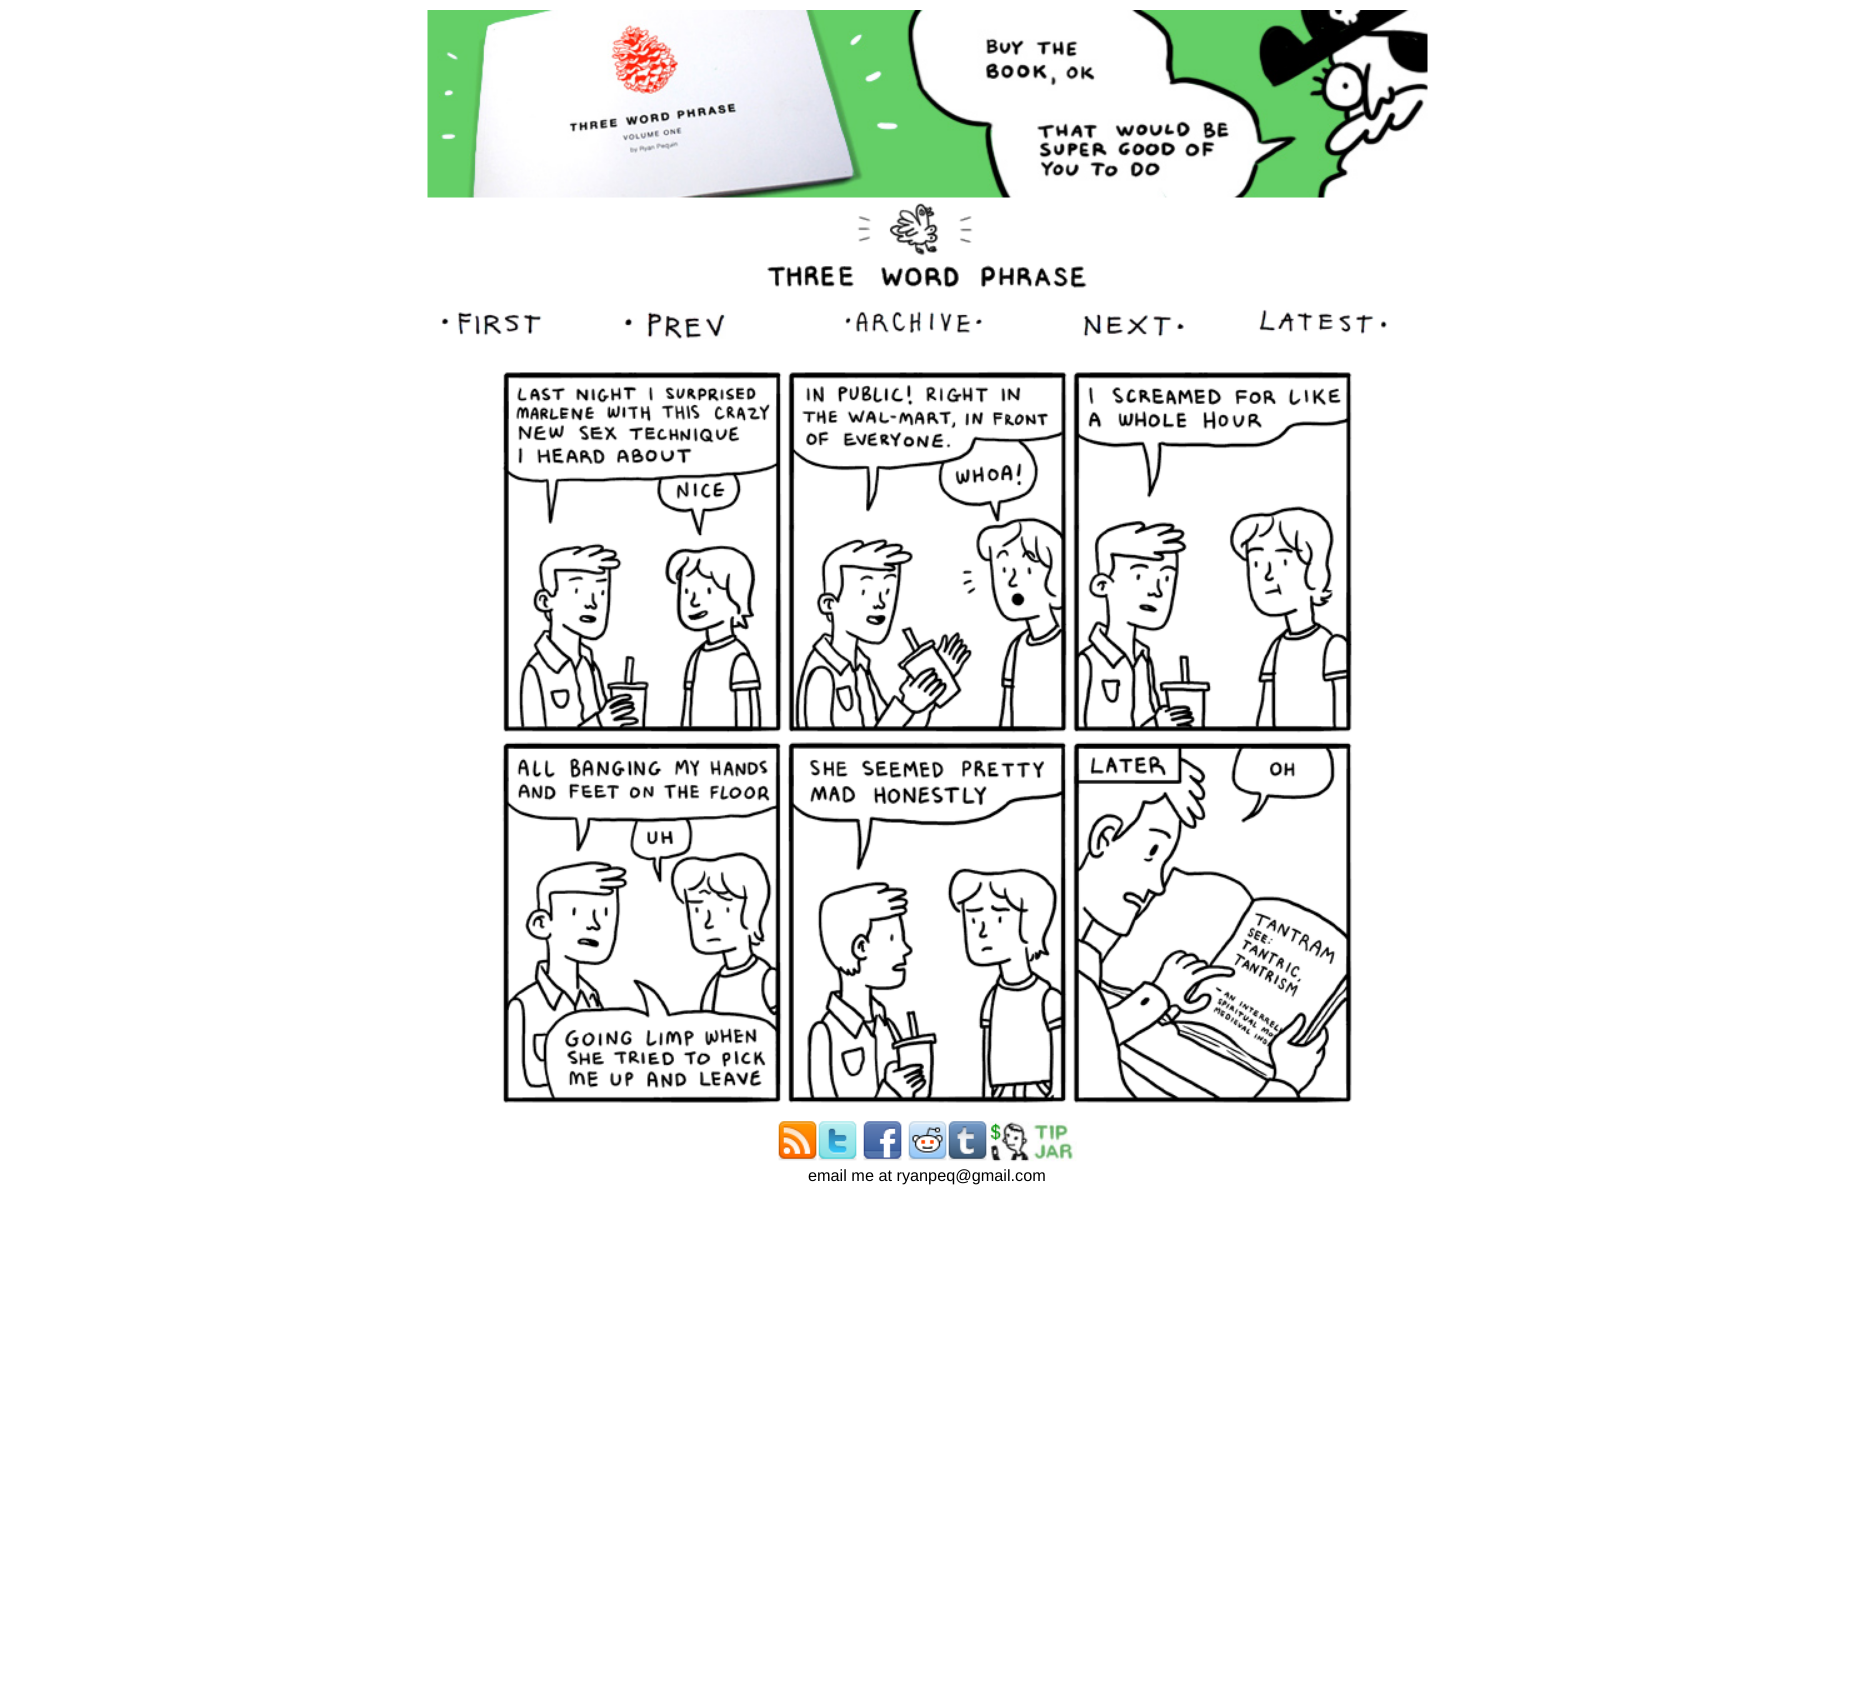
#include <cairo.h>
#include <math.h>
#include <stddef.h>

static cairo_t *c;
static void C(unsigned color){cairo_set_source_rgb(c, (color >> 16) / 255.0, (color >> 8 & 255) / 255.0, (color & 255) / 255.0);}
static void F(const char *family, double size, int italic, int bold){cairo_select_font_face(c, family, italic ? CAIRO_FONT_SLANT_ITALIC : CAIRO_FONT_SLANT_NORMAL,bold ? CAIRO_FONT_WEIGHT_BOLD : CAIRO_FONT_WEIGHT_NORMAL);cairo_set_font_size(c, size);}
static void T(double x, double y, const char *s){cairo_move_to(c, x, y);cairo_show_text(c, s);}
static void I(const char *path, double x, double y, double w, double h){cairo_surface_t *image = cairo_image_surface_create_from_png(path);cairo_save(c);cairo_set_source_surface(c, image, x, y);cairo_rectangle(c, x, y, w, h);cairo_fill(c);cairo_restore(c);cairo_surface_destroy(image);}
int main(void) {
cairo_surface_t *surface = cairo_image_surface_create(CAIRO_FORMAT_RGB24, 1853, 1699);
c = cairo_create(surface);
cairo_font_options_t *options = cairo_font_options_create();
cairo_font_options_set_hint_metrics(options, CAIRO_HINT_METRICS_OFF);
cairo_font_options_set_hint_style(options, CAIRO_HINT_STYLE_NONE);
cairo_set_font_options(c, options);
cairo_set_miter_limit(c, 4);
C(0xffffff);
cairo_paint(c);
I("1.png",427,10,1001,188);
I("2.png",767,203,320,85);
I("3.png",441,312,101,24);
I("4.png",624,312,102,27);
I("5.png",845,311,138,23);
I("6.png",1083,313,101,24);
I("7.png",1258,309,129,25);
I("8.png",502,371,850,732);
I("9.png",778,1121,39,40);
I("10.png",818,1121,39,40);
I("11.png",863,1121,39,40);
I("12.png",908,1121,39,40);
I("13.png",948,1121,39,40);
I("14.png",987,1121,90,41);
F("Liberation Sans",16.25,0,0);
C(0x000000);
T(808,1181,"email me at ryanpeq@gmail.com");
cairo_surface_write_to_png(surface, "o.png");
cairo_font_options_destroy(options);
cairo_destroy(c);
cairo_surface_destroy(surface);
return 0;
}
